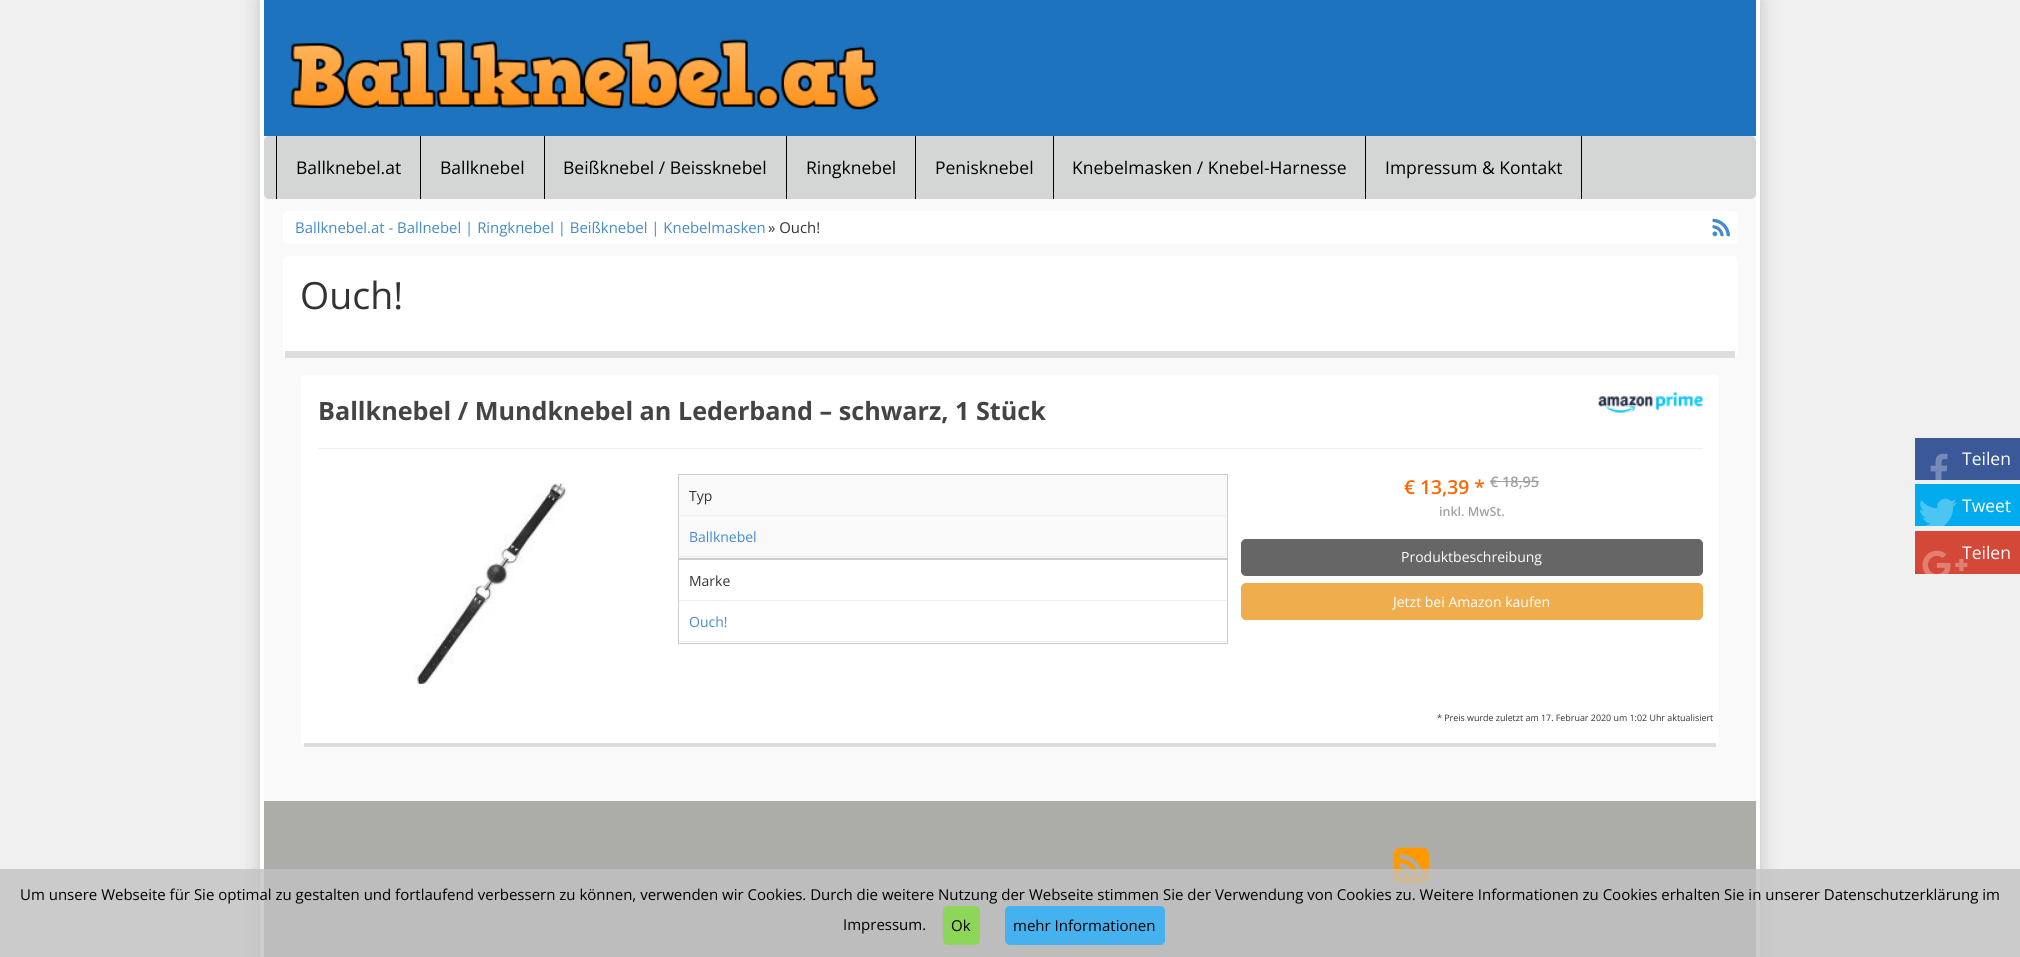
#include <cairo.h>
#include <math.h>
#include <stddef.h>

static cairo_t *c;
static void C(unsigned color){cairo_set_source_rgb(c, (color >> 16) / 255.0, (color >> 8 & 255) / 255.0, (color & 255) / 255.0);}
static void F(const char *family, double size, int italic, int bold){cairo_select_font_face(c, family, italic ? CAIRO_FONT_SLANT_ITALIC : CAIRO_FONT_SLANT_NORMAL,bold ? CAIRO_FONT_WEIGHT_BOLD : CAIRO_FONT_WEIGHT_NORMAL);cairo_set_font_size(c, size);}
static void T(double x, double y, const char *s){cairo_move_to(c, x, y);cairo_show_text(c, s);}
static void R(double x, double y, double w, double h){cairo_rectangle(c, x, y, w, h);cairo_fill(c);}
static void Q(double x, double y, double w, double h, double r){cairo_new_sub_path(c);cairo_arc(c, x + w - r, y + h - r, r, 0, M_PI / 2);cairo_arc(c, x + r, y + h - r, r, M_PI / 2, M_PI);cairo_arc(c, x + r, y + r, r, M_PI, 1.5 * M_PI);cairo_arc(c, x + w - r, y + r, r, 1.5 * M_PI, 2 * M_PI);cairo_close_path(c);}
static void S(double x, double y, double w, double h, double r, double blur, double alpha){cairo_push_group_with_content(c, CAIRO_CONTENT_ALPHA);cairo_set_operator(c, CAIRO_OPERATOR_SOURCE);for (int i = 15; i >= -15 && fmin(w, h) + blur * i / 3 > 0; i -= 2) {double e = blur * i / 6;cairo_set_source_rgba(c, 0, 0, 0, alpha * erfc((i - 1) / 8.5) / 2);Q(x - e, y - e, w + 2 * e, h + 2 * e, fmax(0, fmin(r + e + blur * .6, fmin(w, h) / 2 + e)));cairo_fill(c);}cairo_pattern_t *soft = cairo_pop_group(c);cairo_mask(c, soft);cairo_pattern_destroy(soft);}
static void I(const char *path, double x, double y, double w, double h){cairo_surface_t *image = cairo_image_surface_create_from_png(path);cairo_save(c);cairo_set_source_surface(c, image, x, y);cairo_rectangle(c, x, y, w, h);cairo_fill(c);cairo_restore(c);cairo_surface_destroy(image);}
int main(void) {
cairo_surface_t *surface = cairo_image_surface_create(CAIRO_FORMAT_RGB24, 2020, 957);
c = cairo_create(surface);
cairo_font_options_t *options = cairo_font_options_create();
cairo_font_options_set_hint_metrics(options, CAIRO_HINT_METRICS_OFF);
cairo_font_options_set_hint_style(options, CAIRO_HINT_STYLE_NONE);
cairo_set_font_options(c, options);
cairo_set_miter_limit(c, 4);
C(0xf1f0f0);
cairo_paint(c);
C(0xc1c1c1);
S(260,0,1500,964,0,9.5,1);
C(0xf9f9f9);
R(264,136,1492,665);
C(0xffffff);
R(1756,0,4,957);
R(260,0,4,957);
C(0x1e73be);
R(264,0,1492,136);
I("1.png",290,39,589,71);
C(0xd4d6d5);
Q(264,136,1492,63,5);
cairo_fill(c);
C(0x000000);
R(276,136,1,63);
F("Open Sans",17.5,0,0);
T(296,174,"Ballknebel.at");
R(420,136,1,63);
T(440,174,"Ballknebel");
R(544,136,1,63);
T(563,174,"Beißknebel / Beissknebel");
R(786,136,1,63);
T(806,174,"Ringknebel");
R(915,136,1,63);
T(935,174,"Penisknebel");
R(1053,136,1,63);
T(1072,174,"Knebelmasken / Knebel-Harnesse");
R(1581,136,1,63);
R(1365,136,1,63);
T(1385,174,"Impressum & Kontakt");
C(0xffffff);
Q(283,211,1455,33,5);
cairo_fill(c);
F("Open Sans",14.9,0,0);
C(0x428bca);
T(295,233,"Ballknebel.at - Ballnebel | Ringknebel | Beißknebel | Knebelmasken");
C(0x333333);
T(768,233,"» Ouch!");
I("2.png",1712,218,18,19);
C(0xffffff);
Q(283,256,1455,102,5);
cairo_fill(c);
C(0xdddddd);
R(285,351,1450,7);
F("Open Sans",37.5,0,0);
C(0x333333);
T(300,309,"Ouch!");
C(0xffffff);
Q(301,375,1418,371,5);
cairo_fill(c);
C(0xdddddd);
R(304,743,1412,4);
F("Open Sans",25.2,0,1);
C(0x444444);
T(318,420,"Ballknebel / Mundknebel an Lederband – schwarz, 1 Stück");
I("3.png",1598,392,105,21);
C(0xeeeeee);
R(318,448,1385,1);
I("4.png",414,483,153,201);
C(0xf9f9f9);
cairo_rectangle(c,678.5,474.5,549,84);
cairo_fill_preserve(c);
C(0xcccccc);
cairo_set_line_width(c,1);
cairo_stroke(c);
C(0xeeeeee);
R(679,515,547,1);
F("Open Sans",14,0,0);
C(0x333333);
T(689,501,"Typ");
C(0xeeeeee);
R(679,556,547,1);
C(0x428bca);
T(689,542,"Ballknebel");
cairo_rectangle(c,678.5,559.5,549,84);
C(0xcccccc);
cairo_stroke(c);
C(0xeeeeee);
R(679,600,547,1);
C(0x333333);
T(689,586,"Marke");
C(0xeeeeee);
R(679,641,547,1);
C(0x428bca);
T(689,627,"Ouch!");
F("Open Sans SemiBold",19.25,0,0);
C(0xff6600);
T(1404,494,"€ 13,39 *");
F("Open Sans SemiBold",14.5,0,0);
C(0xa2a1a1);
T(1490,487,"€ 18,95");
R(1490,481,49,1);
F("Open Sans SemiBold",12.5,0,0);
T(1439,516,"inkl. MwSt.");
C(0x666666);
Q(1241.5,539.5,461,36,4.5);
cairo_fill_preserve(c);
cairo_stroke(c);
F("Open Sans",14,0,0);
C(0xffffff);
T(1401,562,"Produktbeschreibung");
C(0xf0ad4e);
Q(1241.5,583.5,461,36,4.5);
cairo_fill_preserve(c);
cairo_stroke(c);
C(0xffffff);
T(1393,607,"Jetzt bei Amazon kaufen");
F("Open Sans",8.9,0,0);
C(0x333333);
T(1437,721,"* Preis wurde zuletzt am 17. Februar 2020 um 1:02 Uhr aktualisiert");
C(0x3b5999);
R(1915,438,105,42);
I("5.png",1930,453,18,27);
F("Open Sans",17.5,0,0);
C(0xffffff);
T(1962,465,"Teilen");
C(0x00aced);
R(1915,484,105,42);
I("6.png",1920,498,37,28);
C(0xffffff);
T(1962,512,"Tweet");
C(0xd34836);
R(1915,531,105,43);
C(0xffffff);
T(1962,559,"Teilen");
I("7.png",1922,550,46,24);
C(0xacaca8);
R(264,801,1492,156);
I("8.png",1393,847,36,36);
C(0xc5c5c2);
R(281,899,1458,1);
cairo_set_source_rgba(c,0.757,0.757,0.757,0.8);
R(0,869,2020,88);
F("Open Sans",15,0,0);
C(0x000000);
T(20,900,"Um unsere Webseite für Sie optimal zu gestalten und fortlaufend verbessern zu können, verwenden wir Cookies. Durch die weitere Nutzung der Webseite stimmen Sie der Verwendung von Cookies zu. Weitere Informationen zu Cookies erhalten Sie in unserer Datenschutzerklärung im");
T(843,930,"Impressum.");
C(0x8dd659);
Q(943,906,37,39,5);
cairo_fill(c);
C(0x000000);
T(951,931,"Ok");
C(0x45b1ef);
Q(1005,906,160,39,5);
cairo_fill(c);
C(0x000000);
T(1013,931,"mehr Informationen");
cairo_surface_write_to_png(surface, "o.png");
cairo_font_options_destroy(options);
cairo_destroy(c);
cairo_surface_destroy(surface);
return 0;
}
